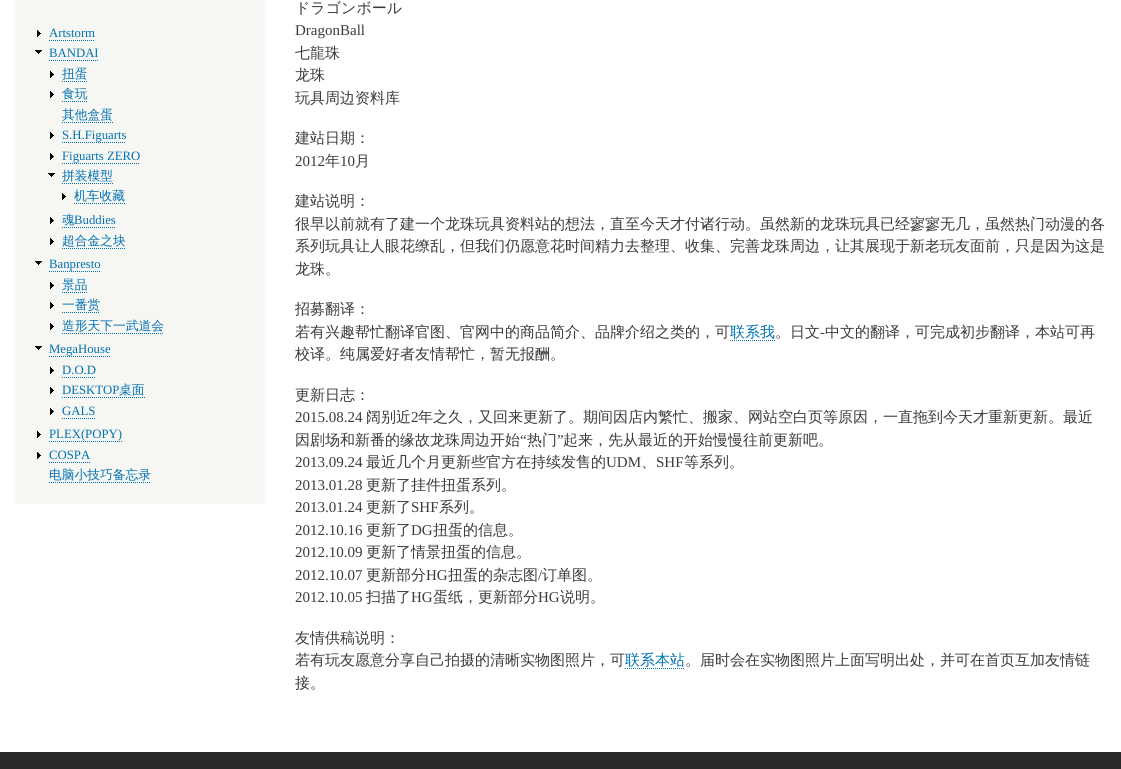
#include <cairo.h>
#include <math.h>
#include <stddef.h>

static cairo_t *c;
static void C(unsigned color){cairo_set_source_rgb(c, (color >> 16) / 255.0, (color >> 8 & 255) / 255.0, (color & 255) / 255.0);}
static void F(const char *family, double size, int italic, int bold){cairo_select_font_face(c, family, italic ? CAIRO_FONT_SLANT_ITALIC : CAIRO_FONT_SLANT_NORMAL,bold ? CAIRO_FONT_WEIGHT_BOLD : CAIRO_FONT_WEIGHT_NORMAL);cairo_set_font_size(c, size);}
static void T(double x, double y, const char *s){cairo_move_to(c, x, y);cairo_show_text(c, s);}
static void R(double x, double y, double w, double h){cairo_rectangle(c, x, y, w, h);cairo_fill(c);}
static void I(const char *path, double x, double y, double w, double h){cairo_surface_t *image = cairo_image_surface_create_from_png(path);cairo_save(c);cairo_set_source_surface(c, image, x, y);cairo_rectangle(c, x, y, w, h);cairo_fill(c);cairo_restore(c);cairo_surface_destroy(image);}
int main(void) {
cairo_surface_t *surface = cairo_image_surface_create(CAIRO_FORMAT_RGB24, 1121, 769);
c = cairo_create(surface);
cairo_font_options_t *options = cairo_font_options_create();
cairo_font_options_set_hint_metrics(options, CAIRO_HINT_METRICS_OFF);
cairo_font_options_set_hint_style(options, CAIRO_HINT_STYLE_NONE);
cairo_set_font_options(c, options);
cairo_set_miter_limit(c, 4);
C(0xffffff);
cairo_paint(c);
C(0xf6f6f2);
cairo_rectangle(c,15.5,-.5,249,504);
cairo_fill_preserve(c);
C(0xf9f9f9);
cairo_set_line_width(c,1);
cairo_stroke(c);
I("1.png",37,30,4,7);
F("Liberation Serif",12.75,0,0);
C(0x0071b3);
T(49,37,"Artstorm");
cairo_new_path(c);
cairo_move_to(c,49,40.5);
cairo_line_to(c,95,40.5);
cairo_set_dash(c,(double[]){1,1},2,0);
cairo_stroke(c);
I("2.png",35,50,7,4);
T(49,57,"BANDAI");
cairo_new_path(c);
cairo_move_to(c,49,60.5);
cairo_line_to(c,98,60.5);
cairo_stroke(c);
I("1.png",50,71,4,7);
F("WenQuanYi Zen Hei Medium",12.75,0,0);
T(62,78,"扭蛋");
cairo_new_path(c);
cairo_move_to(c,62,81.5);
cairo_line_to(c,87,81.5);
cairo_stroke(c);
I("1.png",50,91,4,7);
T(62,98,"食玩");
cairo_new_path(c);
cairo_move_to(c,62,101.5);
cairo_line_to(c,87,101.5);
cairo_stroke(c);
T(62,119,"其他盒蛋");
cairo_new_path(c);
cairo_move_to(c,62,122.5);
cairo_line_to(c,113,122.5);
cairo_stroke(c);
I("1.png",50,132,4,7);
F("Liberation Serif",12.75,0,0);
T(62,139,"S.H.Figuarts");
cairo_new_path(c);
cairo_move_to(c,62,142.5);
cairo_line_to(c,126,142.5);
cairo_stroke(c);
I("1.png",50,153,4,7);
T(62,160,"Figuarts ZERO");
cairo_new_path(c);
cairo_move_to(c,62,163.5);
cairo_line_to(c,140,163.5);
cairo_stroke(c);
I("2.png",48,173,7,4);
F("WenQuanYi Zen Hei Medium",12.75,0,0);
T(62,180,"拼装模型");
cairo_new_path(c);
cairo_move_to(c,62,183.5);
cairo_line_to(c,113,183.5);
cairo_stroke(c);
I("1.png",62,193,4,7);
T(74,200,"机车收藏");
cairo_new_path(c);
cairo_move_to(c,74,203.5);
cairo_line_to(c,125,203.5);
cairo_stroke(c);
I("1.png",50,217,4,7);
T(62,224,"魂");
F("Liberation Serif",12.75,0,0);
T(74,224,"Buddies");
cairo_new_path(c);
cairo_move_to(c,62,227.5);
cairo_line_to(c,116,227.5);
cairo_stroke(c);
I("1.png",50,238,4,7);
F("WenQuanYi Zen Hei Medium",12.75,0,0);
T(62,245,"超合金之块");
cairo_new_path(c);
cairo_move_to(c,62,248.5);
cairo_line_to(c,125,248.5);
cairo_stroke(c);
I("2.png",35,261,7,4);
F("Liberation Serif",12.75,0,0);
T(49,268,"Banpresto");
cairo_new_path(c);
cairo_move_to(c,49,271.5);
cairo_line_to(c,101,271.5);
cairo_stroke(c);
I("1.png",50,282,4,7);
F("WenQuanYi Zen Hei Medium",12.75,0,0);
T(62,289,"景品");
cairo_new_path(c);
cairo_move_to(c,62,292.5);
cairo_line_to(c,87,292.5);
cairo_stroke(c);
I("1.png",50,302,4,7);
T(62,309,"一番赏");
cairo_new_path(c);
cairo_move_to(c,62,312.5);
cairo_line_to(c,100,312.5);
cairo_stroke(c);
I("1.png",50,323,4,7);
T(62,330,"造形天下一武道会");
cairo_new_path(c);
cairo_move_to(c,62,333.5);
cairo_line_to(c,164,333.5);
cairo_stroke(c);
I("2.png",35,346,7,4);
F("Liberation Serif",12.75,0,0);
T(49,353,"MegaHouse");
cairo_new_path(c);
cairo_move_to(c,49,356.5);
cairo_line_to(c,111,356.5);
cairo_stroke(c);
I("1.png",50,367,4,7);
T(62,374,"D.O.D");
cairo_new_path(c);
cairo_move_to(c,62,377.5);
cairo_line_to(c,96,377.5);
cairo_stroke(c);
I("1.png",50,387,4,7);
T(62,394,"DESKTOP");
cairo_new_path(c);
cairo_move_to(c,62,397.5);
cairo_line_to(c,145,397.5);
cairo_stroke(c);
F("WenQuanYi Zen Hei Medium",12.75,0,0);
T(119,394,"桌面");
I("1.png",50,408,4,7);
F("Liberation Serif",12.75,0,0);
T(62,415,"GALS");
cairo_new_path(c);
cairo_move_to(c,62,418.5);
cairo_line_to(c,95,418.5);
cairo_stroke(c);
I("1.png",37,431,4,7);
T(49,438,"PLEX(POPY)");
cairo_new_path(c);
cairo_move_to(c,49,441.5);
cairo_line_to(c,122,441.5);
cairo_stroke(c);
I("1.png",37,452,4,7);
T(49,459,"COSPA");
cairo_new_path(c);
cairo_move_to(c,49,462.5);
cairo_line_to(c,90,462.5);
cairo_stroke(c);
F("WenQuanYi Zen Hei Medium",12.75,0,0);
T(49,479,"电脑小技巧备忘录");
cairo_new_path(c);
cairo_move_to(c,49,482.5);
cairo_line_to(c,151,482.5);
cairo_stroke(c);
F("WenQuanYi Zen Hei Medium",15,0,0);
C(0x3b3b3b);
T(295,13,"ドラゴンボール");
F("Liberation Serif",15,0,0);
T(295,35,"DragonBall");
F("WenQuanYi Zen Hei Medium",15,0,0);
T(295,58,"七龍珠");
T(295,80,"龙珠");
T(295,103,"玩具周边资料库");
T(295,143,"建站日期：");
F("Liberation Serif",15,0,0);
T(295,166,"2012");
F("WenQuanYi Zen Hei Medium",15,0,0);
T(325,166,"年");
F("Liberation Serif",15,0,0);
T(340,166,"10");
F("WenQuanYi Zen Hei Medium",15,0,0);
T(355,166,"月");
T(295,206,"建站说明：");
T(295,229,"很早以前就有了建一个龙珠玩具资料站的想法，直至今天才付诸行动。虽然新的龙珠玩具已经寥寥无几，虽然热门动漫的各");
T(295,251,"系列玩具让人眼花缭乱，但我们仍愿意花时间精力去整理、收集、完善龙珠周边，让其展现于新老玩友面前，只是因为这是");
T(295,274,"龙珠。");
T(295,314,"招募翻译：");
T(295,337,"若有兴趣帮忙翻译官图、官网中的商品简介、品牌介绍之类的，可");
C(0x0071b3);
T(730,337,"联系我");
cairo_new_path(c);
cairo_move_to(c,730,340.5);
cairo_line_to(c,775,340.5);
cairo_stroke(c);
C(0x3b3b3b);
T(775,337,"。日文");
F("Liberation Serif",15,0,0);
T(820,337,"-");
F("WenQuanYi Zen Hei Medium",15,0,0);
T(825,337,"中文的翻译，可完成初步翻译，本站可再");
T(295,359,"校译。纯属爱好者友情帮忙，暂无报酬。");
T(295,400,"更新日志：");
F("Liberation Serif",15,0,0);
T(295,422,"2015.08.24");
F("WenQuanYi Zen Hei Medium",15,0,0);
T(366,422,"阔别近");
F("Liberation Serif",15,0,0);
T(411,422,"2");
F("WenQuanYi Zen Hei Medium",15,0,0);
T(418,422,"年之久，又回来更新了。期间因店内繁忙、搬家、网站空白页等原因，一直拖到今天才重新更新。最近");
T(295,445,"因剧场和新番的缘故龙珠周边开始");
F("Liberation Serif",15,0,0);
T(520,445,"“");
F("WenQuanYi Zen Hei Medium",15,0,0);
T(527,445,"热门");
F("Liberation Serif",15,0,0);
T(557,445,"”");
F("WenQuanYi Zen Hei Medium",15,0,0);
T(563,445,"起来，先从最近的开始慢慢往前更新吧。");
F("Liberation Serif",15,0,0);
T(295,467,"2013.09.24");
F("WenQuanYi Zen Hei Medium",15,0,0);
T(366,467,"最近几个月更新些官方在持续发售的");
F("Liberation Serif",15,0,0);
T(606,467,"UDM");
F("WenQuanYi Zen Hei Medium",15,0,0);
T(641,467,"、");
F("Liberation Serif",15,0,0);
T(656,467,"SHF");
F("WenQuanYi Zen Hei Medium",15,0,0);
T(684,467,"等系列。");
F("Liberation Serif",15,0,0);
T(295,490,"2013.01.28");
F("WenQuanYi Zen Hei Medium",15,0,0);
T(366,490,"更新了挂件扭蛋系列。");
F("Liberation Serif",15,0,0);
T(295,512,"2013.01.24");
F("WenQuanYi Zen Hei Medium",15,0,0);
T(366,512,"更新了");
F("Liberation Serif",15,0,0);
T(411,512,"SHF");
F("WenQuanYi Zen Hei Medium",15,0,0);
T(439,512,"系列。");
F("Liberation Serif",15,0,0);
T(295,535,"2012.10.16");
F("WenQuanYi Zen Hei Medium",15,0,0);
T(366,535,"更新了");
F("Liberation Serif",15,0,0);
T(411,535,"DG");
F("WenQuanYi Zen Hei Medium",15,0,0);
T(433,535,"扭蛋的信息。");
F("Liberation Serif",15,0,0);
T(295,557,"2012.10.09");
F("WenQuanYi Zen Hei Medium",15,0,0);
T(366,557,"更新了情景扭蛋的信息。");
F("Liberation Serif",15,0,0);
T(295,580,"2012.10.07");
F("WenQuanYi Zen Hei Medium",15,0,0);
T(366,580,"更新部分");
F("Liberation Serif",15,0,0);
T(426,580,"HG");
F("WenQuanYi Zen Hei Medium",15,0,0);
T(448,580,"扭蛋的杂志图");
F("Liberation Serif",15,0,0);
T(538,580,"/");
F("WenQuanYi Zen Hei Medium",15,0,0);
T(542,580,"订单图。");
F("Liberation Serif",15,0,0);
T(295,602,"2012.10.05");
F("WenQuanYi Zen Hei Medium",15,0,0);
T(366,602,"扫描了");
F("Liberation Serif",15,0,0);
T(411,602,"HG");
F("WenQuanYi Zen Hei Medium",15,0,0);
T(433,602,"蛋纸，更新部分");
F("Liberation Serif",15,0,0);
T(538,602,"HG");
F("WenQuanYi Zen Hei Medium",15,0,0);
T(560,602,"说明。");
T(295,643,"友情供稿说明：");
T(295,665,"若有玩友愿意分享自己拍摄的清晰实物图照片，可");
C(0x0071b3);
T(625,665,"联系本站");
cairo_new_path(c);
cairo_move_to(c,625,668.5);
cairo_line_to(c,685,668.5);
cairo_stroke(c);
C(0x3b3b3b);
T(685,665,"。届时会在实物图照片上面写明出处，并可在首页互加友情链");
T(295,688,"接。");
C(0x292929);
R(0,752,1121,17);
cairo_surface_write_to_png(surface, "o.png");
cairo_font_options_destroy(options);
cairo_destroy(c);
cairo_surface_destroy(surface);
return 0;
}
